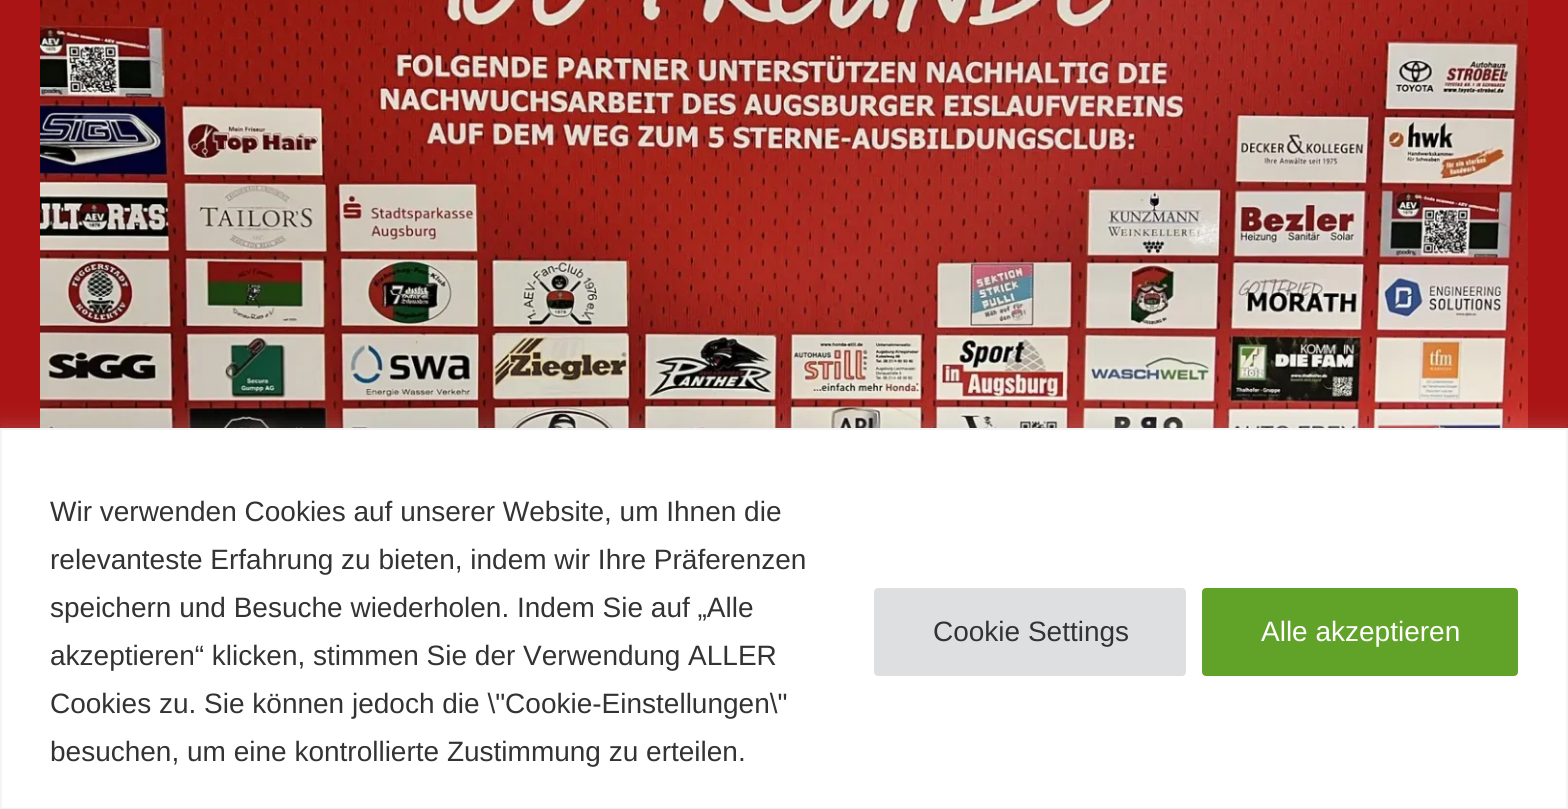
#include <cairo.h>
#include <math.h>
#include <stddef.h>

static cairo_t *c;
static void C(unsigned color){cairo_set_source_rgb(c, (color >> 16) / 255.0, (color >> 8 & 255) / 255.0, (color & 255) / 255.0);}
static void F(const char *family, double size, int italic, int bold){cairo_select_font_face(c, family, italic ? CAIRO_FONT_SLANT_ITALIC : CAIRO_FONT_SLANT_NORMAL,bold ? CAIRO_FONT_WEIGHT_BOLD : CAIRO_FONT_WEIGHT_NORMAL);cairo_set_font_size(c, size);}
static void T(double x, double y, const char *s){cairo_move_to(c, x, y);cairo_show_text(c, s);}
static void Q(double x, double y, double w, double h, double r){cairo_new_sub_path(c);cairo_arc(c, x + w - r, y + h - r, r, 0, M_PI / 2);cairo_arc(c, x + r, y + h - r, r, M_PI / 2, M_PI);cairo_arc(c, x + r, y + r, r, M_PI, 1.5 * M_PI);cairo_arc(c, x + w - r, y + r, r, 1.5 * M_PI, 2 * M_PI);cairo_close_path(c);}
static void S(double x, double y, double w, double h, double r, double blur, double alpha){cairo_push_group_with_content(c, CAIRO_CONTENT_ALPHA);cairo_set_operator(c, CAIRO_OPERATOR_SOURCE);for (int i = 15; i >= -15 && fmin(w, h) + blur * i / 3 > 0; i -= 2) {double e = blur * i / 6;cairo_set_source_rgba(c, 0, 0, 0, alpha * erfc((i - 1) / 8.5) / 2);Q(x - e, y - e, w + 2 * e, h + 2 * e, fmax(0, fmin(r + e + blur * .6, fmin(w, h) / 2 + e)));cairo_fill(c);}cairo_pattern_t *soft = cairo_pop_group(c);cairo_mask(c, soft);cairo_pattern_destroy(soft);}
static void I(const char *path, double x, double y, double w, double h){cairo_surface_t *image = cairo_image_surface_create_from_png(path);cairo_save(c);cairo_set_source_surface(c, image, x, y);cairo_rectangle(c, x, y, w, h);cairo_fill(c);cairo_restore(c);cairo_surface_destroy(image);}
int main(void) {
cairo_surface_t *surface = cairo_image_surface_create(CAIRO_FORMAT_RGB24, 1568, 809);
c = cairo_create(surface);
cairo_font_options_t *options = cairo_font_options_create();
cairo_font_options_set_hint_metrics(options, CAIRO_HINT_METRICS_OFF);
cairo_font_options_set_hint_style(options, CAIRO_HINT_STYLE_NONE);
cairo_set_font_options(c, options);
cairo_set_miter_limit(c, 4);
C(0xab1414);
cairo_paint(c);
I("1.png",40,0,1488,428);
C(0xacabab);
S(0,426,1568,382,0,10,.3);
C(0xffffff);
cairo_rectangle(c,1,429,1566,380);
cairo_fill_preserve(c);
C(0xf4f4f4);
cairo_stroke(c);
F("Liberation Sans",28,0,0);
C(0x333333);
T(50,521,"Wir verwenden Cookies auf unserer Website, um Ihnen die");
T(50,569,"relevanteste Erfahrung zu bieten, indem wir Ihre Präferenzen");
T(50,617,"speichern und Besuche wiederholen. Indem Sie auf „Alle");
T(50,665,"akzeptieren“ klicken, stimmen Sie der Verwendung ALLER");
T(50,713,"Cookies zu. Sie können jedoch die \\\"Cookie-Einstellungen\\\"");
T(50,761,"besuchen, um eine kontrollierte Zustimmung zu erteilen.");
C(0xdedfe0);
Q(876,590,308,84,2);
cairo_fill_preserve(c);
cairo_set_line_width(c,4);
cairo_stroke(c);
C(0x333333);
T(933,641,"Cookie Settings");
C(0x61a229);
Q(1204,590,312,84,2);
cairo_fill_preserve(c);
cairo_stroke(c);
C(0xffffff);
T(1261,641,"Alle akzeptieren");
cairo_surface_write_to_png(surface, "o.png");
cairo_font_options_destroy(options);
cairo_destroy(c);
cairo_surface_destroy(surface);
return 0;
}
